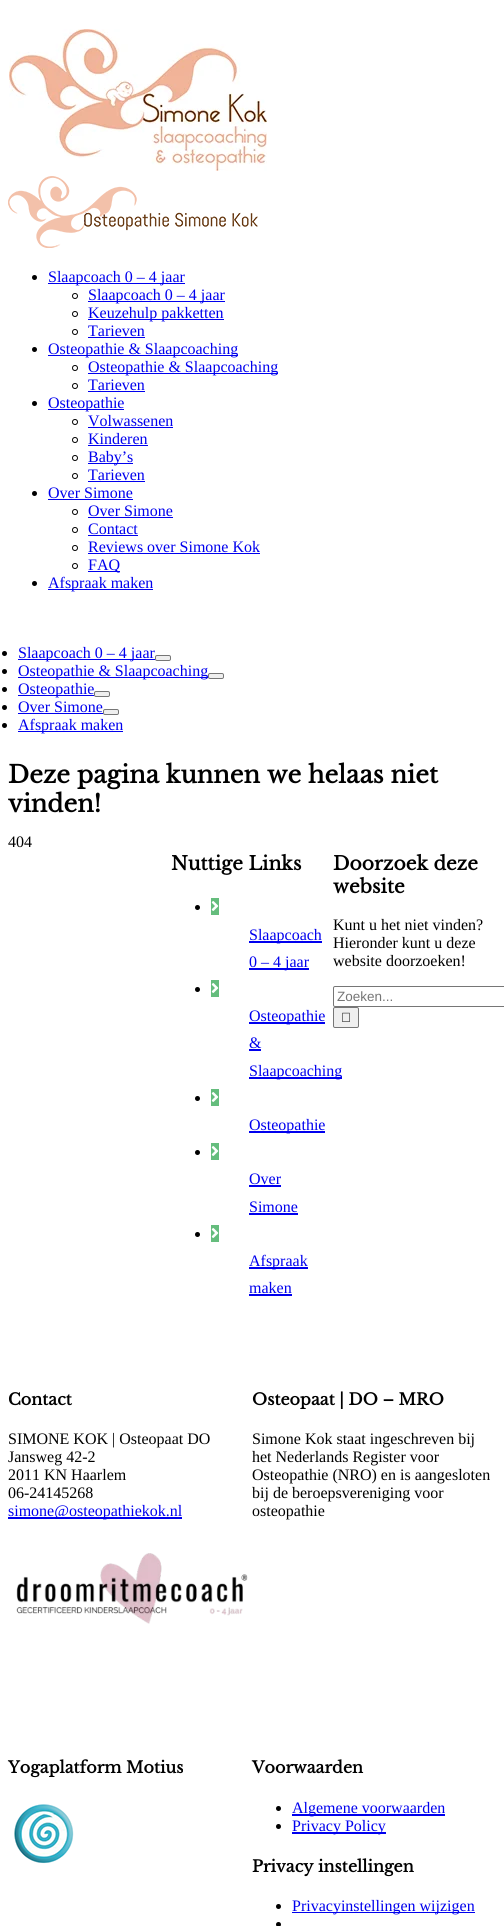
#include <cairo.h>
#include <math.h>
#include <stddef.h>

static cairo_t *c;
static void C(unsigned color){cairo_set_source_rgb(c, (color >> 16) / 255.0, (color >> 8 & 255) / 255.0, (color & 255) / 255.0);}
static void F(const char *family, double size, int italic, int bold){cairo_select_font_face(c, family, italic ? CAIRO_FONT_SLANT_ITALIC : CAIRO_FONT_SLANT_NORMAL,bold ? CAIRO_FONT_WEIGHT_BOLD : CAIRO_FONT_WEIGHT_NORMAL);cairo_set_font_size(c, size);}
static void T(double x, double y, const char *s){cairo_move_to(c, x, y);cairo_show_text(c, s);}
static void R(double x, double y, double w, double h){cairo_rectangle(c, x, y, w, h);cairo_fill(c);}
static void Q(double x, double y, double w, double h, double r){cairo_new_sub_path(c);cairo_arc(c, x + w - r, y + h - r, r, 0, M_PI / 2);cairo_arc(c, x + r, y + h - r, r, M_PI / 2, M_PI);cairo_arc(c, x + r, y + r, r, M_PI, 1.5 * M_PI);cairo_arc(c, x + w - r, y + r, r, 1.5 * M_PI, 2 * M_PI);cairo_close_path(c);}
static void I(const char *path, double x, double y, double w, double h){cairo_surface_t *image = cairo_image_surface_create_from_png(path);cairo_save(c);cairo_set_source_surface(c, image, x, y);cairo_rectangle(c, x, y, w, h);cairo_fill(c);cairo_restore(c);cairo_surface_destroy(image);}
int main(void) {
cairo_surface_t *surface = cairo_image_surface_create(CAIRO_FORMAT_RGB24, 504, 1926);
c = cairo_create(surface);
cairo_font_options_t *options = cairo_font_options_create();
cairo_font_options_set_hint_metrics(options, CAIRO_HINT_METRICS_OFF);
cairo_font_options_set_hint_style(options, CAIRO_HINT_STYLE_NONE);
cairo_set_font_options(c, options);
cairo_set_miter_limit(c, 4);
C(0xffffff);
cairo_paint(c);
I("1.png",9,29,258,142);
I("2.png",8,176,250,72);
C(0x000000);
cairo_arc(c,34.5,277.5,2.5,0,2 * M_PI);
cairo_fill(c);
C(0x0000ee);
R(48,283,137,1);
F("Liberation Serif",16,0,0);
T(48,282,"Slaapcoach 0 – 4 jaar");
cairo_new_path(c);
cairo_arc(c,75,296,2.5,0,2 * M_PI);
C(0x000000);
cairo_set_line_width(c,1);
cairo_stroke(c);
C(0x0000ee);
R(88,301,137,1);
T(88,300,"Slaapcoach 0 – 4 jaar");
cairo_new_path(c);
cairo_arc(c,75,314,2.5,0,2 * M_PI);
C(0x000000);
cairo_stroke(c);
C(0x0000ee);
R(88,319,136,1);
T(88,318,"Keuzehulp pakketten");
cairo_new_path(c);
cairo_arc(c,75,332,2.5,0,2 * M_PI);
C(0x000000);
cairo_stroke(c);
C(0x0000ee);
T(88,336,"Tarieven");
R(88,337,57,1);
C(0x000000);
cairo_new_path(c);
cairo_arc(c,34.5,349.5,2.5,0,2 * M_PI);
cairo_fill(c);
C(0x0000ee);
R(48,355,190,1);
T(48,354,"Osteopathie & Slaapcoaching");
cairo_new_path(c);
cairo_arc(c,75,368,2.5,0,2 * M_PI);
C(0x000000);
cairo_stroke(c);
C(0x0000ee);
R(88,373,190,1);
T(88,372,"Osteopathie & Slaapcoaching");
cairo_new_path(c);
cairo_arc(c,75,386,2.5,0,2 * M_PI);
C(0x000000);
cairo_stroke(c);
C(0x0000ee);
T(88,390,"Tarieven");
R(88,391,57,1);
C(0x000000);
cairo_new_path(c);
cairo_arc(c,34.5,403.5,2.5,0,2 * M_PI);
cairo_fill(c);
C(0x0000ee);
R(48,409,76,1);
T(48,408,"Osteopathie");
cairo_new_path(c);
cairo_arc(c,75,422,2.5,0,2 * M_PI);
C(0x000000);
cairo_stroke(c);
C(0x0000ee);
T(88,426,"Volwassenen");
R(88,427,85,1);
cairo_new_path(c);
cairo_arc(c,75,440,2.5,0,2 * M_PI);
C(0x000000);
cairo_stroke(c);
C(0x0000ee);
T(88,444,"Kinderen");
R(88,445,60,1);
cairo_new_path(c);
cairo_arc(c,75,458,2.5,0,2 * M_PI);
C(0x000000);
cairo_stroke(c);
C(0x0000ee);
R(88,463,45,1);
T(88,462,"Baby’s");
cairo_new_path(c);
cairo_arc(c,75,476,2.5,0,2 * M_PI);
C(0x000000);
cairo_stroke(c);
C(0x0000ee);
T(88,480,"Tarieven");
R(88,481,57,1);
C(0x000000);
cairo_new_path(c);
cairo_arc(c,34.5,493.5,2.5,0,2 * M_PI);
cairo_fill(c);
C(0x0000ee);
T(48,498,"Over Simone");
R(48,499,85,1);
cairo_new_path(c);
cairo_arc(c,75,512,2.5,0,2 * M_PI);
C(0x000000);
cairo_stroke(c);
C(0x0000ee);
T(88,516,"Over Simone");
R(88,517,85,1);
cairo_new_path(c);
cairo_arc(c,75,530,2.5,0,2 * M_PI);
C(0x000000);
cairo_stroke(c);
C(0x0000ee);
T(88,534,"Contact");
R(88,535,50,1);
cairo_new_path(c);
cairo_arc(c,75,548,2.5,0,2 * M_PI);
C(0x000000);
cairo_stroke(c);
C(0x0000ee);
T(88,552,"Reviews over Simone Kok");
R(88,553,172,1);
cairo_new_path(c);
cairo_arc(c,75,566,2.5,0,2 * M_PI);
C(0x000000);
cairo_stroke(c);
C(0x0000ee);
R(88,571,32,1);
T(88,570,"FAQ");
C(0x000000);
cairo_new_path(c);
cairo_arc(c,34.5,583.5,2.5,0,2 * M_PI);
cairo_fill(c);
C(0x0000ee);
R(48,589,105,1);
T(48,588,"Afspraak maken");
C(0x000000);
cairo_new_path(c);
cairo_arc(c,4.5,653.5,2.5,0,2 * M_PI);
cairo_fill(c);
C(0x0000ee);
R(18,659,137,1);
T(18,658,"Slaapcoach 0 – 4 jaar");
C(0xefefef);
Q(155.5,655.5,15,5,1.5);
cairo_fill_preserve(c);
C(0x767676);
cairo_stroke(c);
C(0x000000);
cairo_arc(c,4.5,671.5,2.5,0,2 * M_PI);
cairo_fill(c);
C(0x0000ee);
R(18,677,190,1);
T(18,676,"Osteopathie & Slaapcoaching");
C(0xefefef);
Q(208.5,673.5,15,5,1.5);
cairo_fill_preserve(c);
C(0x767676);
cairo_stroke(c);
C(0x000000);
cairo_arc(c,4.5,689.5,2.5,0,2 * M_PI);
cairo_fill(c);
C(0x0000ee);
R(18,695,76,1);
T(18,694,"Osteopathie");
C(0xefefef);
Q(94.5,691.5,15,5,1.5);
cairo_fill_preserve(c);
C(0x767676);
cairo_stroke(c);
C(0x000000);
cairo_arc(c,4.5,707.5,2.5,0,2 * M_PI);
cairo_fill(c);
C(0x0000ee);
T(18,712,"Over Simone");
R(18,713,85,1);
C(0xefefef);
Q(103.5,709.5,15,5,1.5);
cairo_fill_preserve(c);
C(0x767676);
cairo_stroke(c);
C(0x000000);
cairo_arc(c,4.5,725.5,2.5,0,2 * M_PI);
cairo_fill(c);
C(0x0000ee);
R(18,731,105,1);
T(18,730,"Afspraak maken");
F("Libre Baskerville",24,0,1);
C(0x000000);
T(8,783,"Deze pagina kunnen we helaas niet");
T(8,812,"vinden!");
F("Liberation Serif",16,0,0);
T(8,847,"404");
F("Libre Baskerville",18.75,0,1);
T(171,870,"Nuttige Links");
cairo_new_path(c);
cairo_arc(c,197.5,907.5,2.5,0,2 * M_PI);
cairo_fill(c);
C(0x65bd7d);
R(211,898,8,17);
I("3.png",211,901,8,10);
C(0x0000ee);
R(249,941,73,2);
F("Liberation Serif",16,0,0);
T(249,940,"Slaapcoach");
R(249,968,60,2);
T(249,967,"0 – 4 jaar");
C(0x000000);
cairo_new_path(c);
cairo_arc(c,197.5,989.5,2.5,0,2 * M_PI);
cairo_fill(c);
C(0x65bd7d);
R(211,980,8,17);
I("3.png",211,983,8,10);
C(0x0000ee);
R(249,1022,76,2);
T(249,1021,"Osteopathie");
T(249,1048,"&");
R(249,1049,12,2);
R(249,1077,93,2);
T(249,1076,"Slaapcoaching");
C(0x000000);
cairo_new_path(c);
cairo_arc(c,197.5,1098.5,2.5,0,2 * M_PI);
cairo_fill(c);
C(0x65bd7d);
R(211,1089,8,17);
I("3.png",211,1092,8,10);
C(0x0000ee);
R(249,1131,76,2);
T(249,1130,"Osteopathie");
C(0x000000);
cairo_new_path(c);
cairo_arc(c,197.5,1152.5,2.5,0,2 * M_PI);
cairo_fill(c);
C(0x65bd7d);
R(211,1143,8,17);
I("3.png",211,1146,8,10);
C(0x0000ee);
T(249,1184,"Over");
R(249,1185,32,2);
T(249,1212,"Simone");
R(249,1213,49,2);
C(0x000000);
cairo_new_path(c);
cairo_arc(c,197.5,1234.5,2.5,0,2 * M_PI);
cairo_fill(c);
C(0x65bd7d);
R(211,1225,8,17);
I("3.png",211,1228,8,10);
C(0x0000ee);
R(249,1267,59,2);
T(249,1266,"Afspraak");
T(249,1293,"maken");
R(249,1294,43,2);
F("Libre Baskerville",18.75,0,1);
C(0x000000);
T(333,870,"Doorzoek deze");
T(333,893,"website");
F("Liberation Serif",16,0,0);
T(333,930,"Kunt u het niet vinden?");
T(333,948,"Hieronder kunt u deze");
T(333,966,"website doorzoeken!");
Q(333.5,986.5,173,20,1.5);
C(0x767676);
cairo_stroke(c);
F("Liberation Sans",13.5,0,0);
C(0x757575);
T(337,1001,"Zoeken...");
C(0xefefef);
Q(333.5,1007.5,25,20,1.5);
cairo_fill_preserve(c);
C(0x767676);
cairo_stroke(c);
I("4.png",342,1012,8,10);
F("Libre Baskerville",16,0,1);
C(0x000000);
T(8,1405,"Contact");
F("Liberation Serif",16,0,0);
T(8,1444,"SIMONE KOK | Osteopaat DO");
T(8,1462,"Jansweg 42-2");
T(8,1480,"2011 KN Haarlem");
T(8,1498,"06-24145268");
C(0x0000ee);
R(8,1517,174,2);
T(8,1516,"simone@osteopathiekok.nl");
I("5.png",16,1553,232,71);
F("Libre Baskerville",16,0,1);
C(0x000000);
T(252,1405,"Osteopaat | DO – MRO");
F("Liberation Serif",16,0,0);
T(252,1444,"Simone Kok staat ingeschreven bij");
T(252,1462,"het Nederlands Register voor");
T(252,1480,"Osteopathie (NRO) en is aangesloten");
T(252,1498,"bij de beroepsvereniging voor");
T(252,1516,"osteopathie");
F("Libre Baskerville",16,0,1);
T(8,1773,"Yogaplatform Motius");
I("6.png",14,1804,60,60);
T(252,1773,"Voorwaarden");
cairo_new_path(c);
cairo_arc(c,278.5,1808.5,2.5,0,2 * M_PI);
cairo_fill(c);
C(0x0000ee);
R(292,1814,153,2);
F("Liberation Serif",16,0,0);
T(292,1813,"Algemene voorwaarden");
C(0x000000);
cairo_new_path(c);
cairo_arc(c,278.5,1826.5,2.5,0,2 * M_PI);
cairo_fill(c);
C(0x0000ee);
R(292,1832,94,2);
T(292,1831,"Privacy Policy");
F("Libre Baskerville",16,0,1);
C(0x000000);
T(252,1872,"Privacy instellingen");
cairo_new_path(c);
cairo_arc(c,278.5,1906.5,2.5,0,2 * M_PI);
cairo_fill(c);
C(0x0000ee);
R(292,1912,183,1);
F("Liberation Serif",16,0,0);
T(292,1911,"Privacyinstellingen wijzigen");
C(0x000000);
cairo_new_path(c);
cairo_arc(c,278.5,1924.5,2.5,0,2 * M_PI);
cairo_fill(c);
cairo_surface_write_to_png(surface, "o.png");
cairo_font_options_destroy(options);
cairo_destroy(c);
cairo_surface_destroy(surface);
return 0;
}
